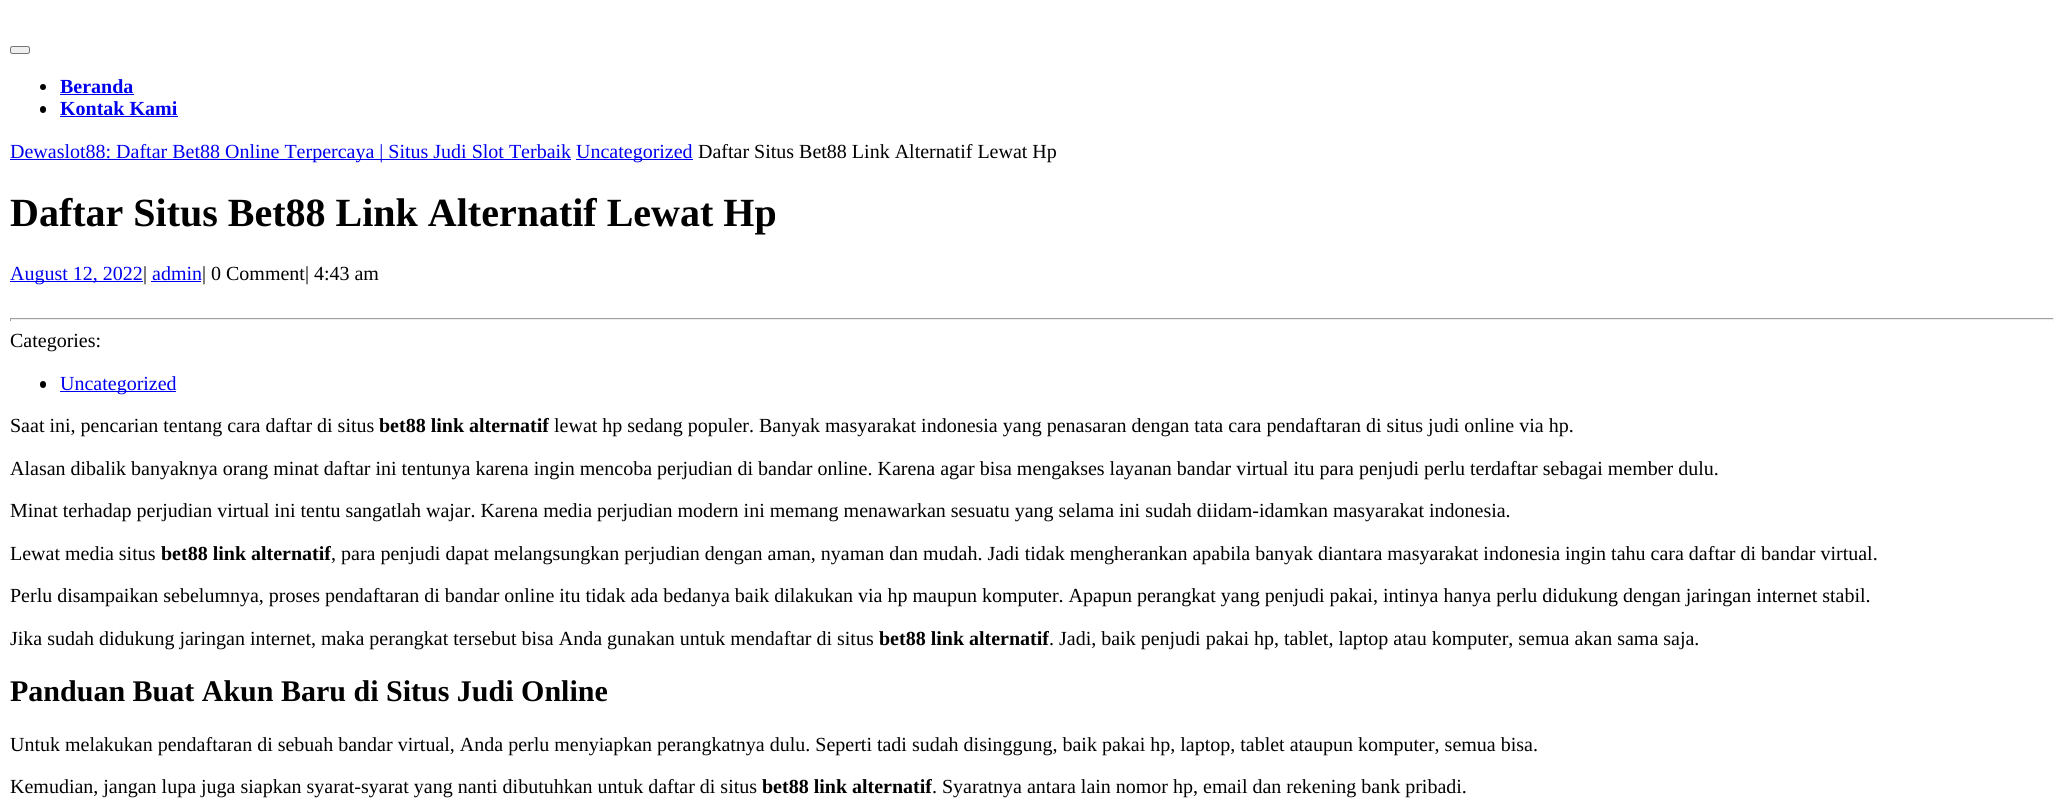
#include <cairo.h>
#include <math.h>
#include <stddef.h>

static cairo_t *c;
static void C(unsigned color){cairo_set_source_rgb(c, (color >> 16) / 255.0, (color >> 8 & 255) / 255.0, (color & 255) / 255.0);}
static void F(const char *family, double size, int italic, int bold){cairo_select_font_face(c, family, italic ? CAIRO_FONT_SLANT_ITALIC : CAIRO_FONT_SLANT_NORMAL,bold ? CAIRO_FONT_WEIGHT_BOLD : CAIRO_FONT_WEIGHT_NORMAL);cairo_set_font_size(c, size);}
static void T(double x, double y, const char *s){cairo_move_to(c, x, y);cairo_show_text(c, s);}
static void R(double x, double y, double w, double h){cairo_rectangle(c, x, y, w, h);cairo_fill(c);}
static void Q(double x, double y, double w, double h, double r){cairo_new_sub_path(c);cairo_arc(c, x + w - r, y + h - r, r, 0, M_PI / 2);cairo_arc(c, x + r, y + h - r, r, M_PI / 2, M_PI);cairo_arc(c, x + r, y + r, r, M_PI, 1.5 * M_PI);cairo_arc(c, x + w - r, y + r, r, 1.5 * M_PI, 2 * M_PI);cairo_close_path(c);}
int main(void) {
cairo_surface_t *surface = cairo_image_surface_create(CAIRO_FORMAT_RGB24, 2063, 798);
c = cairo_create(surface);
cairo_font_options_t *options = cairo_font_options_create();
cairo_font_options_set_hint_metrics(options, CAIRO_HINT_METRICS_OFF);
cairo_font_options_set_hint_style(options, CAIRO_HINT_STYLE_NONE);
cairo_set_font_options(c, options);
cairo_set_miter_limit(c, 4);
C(0xffffff);
cairo_paint(c);
C(0xefefef);
Q(10.5,46.5,19,7,2);
cairo_fill_preserve(c);
C(0x767676);
cairo_set_line_width(c,1);
cairo_stroke(c);
C(0x000000);
cairo_arc(c,43,87,3,0,2 * M_PI);
cairo_fill(c);
F("Liberation Serif",20,0,1);
C(0x0000ee);
T(60,93,"Beranda");
R(60,94,74,1);
C(0x000000);
Q(40,106,6,7,3);
cairo_fill(c);
C(0x0000ee);
T(60,115,"Kontak Kami");
R(60,116,118,1);
R(10,159,561,1);
F("Liberation Serif",20,0,0);
T(10,158,"Dewaslot88: Daftar Bet88 Online Terpercaya | Situs Judi Slot Terbaik");
R(576,159,117,1);
T(576,158,"Uncategorized");
C(0x000000);
T(698,158,"Daftar Situs Bet88 Link Alternatif Lewat Hp");
F("Liberation Serif",40,0,1);
T(10,226,"Daftar Situs Bet88 Link Alternatif Lewat Hp");
C(0x0000ee);
R(10,281,133,1);
F("Liberation Serif",20,0,0);
T(10,280,"August 12, 2022");
C(0x000000);
T(143,280,"|");
C(0x0000ee);
T(152,280,"admin");
R(151,281,50,1);
C(0x000000);
T(202,280,"| 0 Comment| 4:43 am");
C(0x9f9f9f);
R(10,318,2044,1);
C(0xeeeeee);
R(2053,318,1,3);
R(10,319,2044,1);
C(0x9f9f9f);
R(10,318,1,3);
C(0x000000);
T(10,347,"Categories:");
Q(40,381,6,7,3);
cairo_fill(c);
C(0x0000ee);
R(60,391,116,1);
T(60,390,"Uncategorized");
C(0x000000);
T(10,432,"Saat ini, pencarian tentang cara daftar di situs");
F("Liberation Serif",20,0,1);
T(379,432,"bet88 link alternatif");
F("Liberation Serif",20,0,0);
T(554,432,"lewat hp sedang populer. Banyak masyarakat indonesia yang penasaran dengan tata cara pendaftaran di situs judi online via hp.");
T(10,475,"Alasan dibalik banyaknya orang minat daftar ini tentunya karena ingin mencoba perjudian di bandar online. Karena agar bisa mengakses layanan bandar virtual itu para penjudi perlu terdaftar sebagai member dulu.");
T(10,517,"Minat terhadap perjudian virtual ini tentu sangatlah wajar. Karena media perjudian modern ini memang menawarkan sesuatu yang selama ini sudah diidam-idamkan masyarakat indonesia.");
T(10,560,"Lewat media situs");
F("Liberation Serif",20,0,1);
T(161,560,"bet88 link alternatif");
F("Liberation Serif",20,0,0);
T(331,560,", para penjudi dapat melangsungkan perjudian dengan aman, nyaman dan mudah. Jadi tidak mengherankan apabila banyak diantara masyarakat indonesia ingin tahu cara daftar di bandar virtual.");
T(10,602,"Perlu disampaikan sebelumnya, proses pendaftaran di bandar online itu tidak ada bedanya baik dilakukan via hp maupun komputer. Apapun perangkat yang penjudi pakai, intinya hanya perlu didukung dengan jaringan internet stabil.");
T(10,645,"Jika sudah didukung jaringan internet, maka perangkat tersebut bisa Anda gunakan untuk mendaftar di situs");
F("Liberation Serif",20,0,1);
T(879,645,"bet88 link alternatif");
F("Liberation Serif",20,0,0);
T(1049,645,". Jadi, baik penjudi pakai hp, tablet, laptop atau komputer, semua akan sama saja.");
F("Liberation Serif",30,0,1);
T(10,701,"Panduan Buat Akun Baru di Situs Judi Online");
F("Liberation Serif",20,0,0);
T(10,751,"Untuk melakukan pendaftaran di sebuah bandar virtual, Anda perlu menyiapkan perangkatnya dulu. Seperti tadi sudah disinggung, baik pakai hp, laptop, tablet ataupun komputer, semua bisa.");
T(10,793,"Kemudian, jangan lupa juga siapkan syarat-syarat yang nanti dibutuhkan untuk daftar di situs");
F("Liberation Serif",20,0,1);
T(762,793,"bet88 link alternatif");
F("Liberation Serif",20,0,0);
T(932,793,". Syaratnya antara lain nomor hp, email dan rekening bank pribadi.");
cairo_surface_write_to_png(surface, "o.png");
cairo_font_options_destroy(options);
cairo_destroy(c);
cairo_surface_destroy(surface);
return 0;
}
